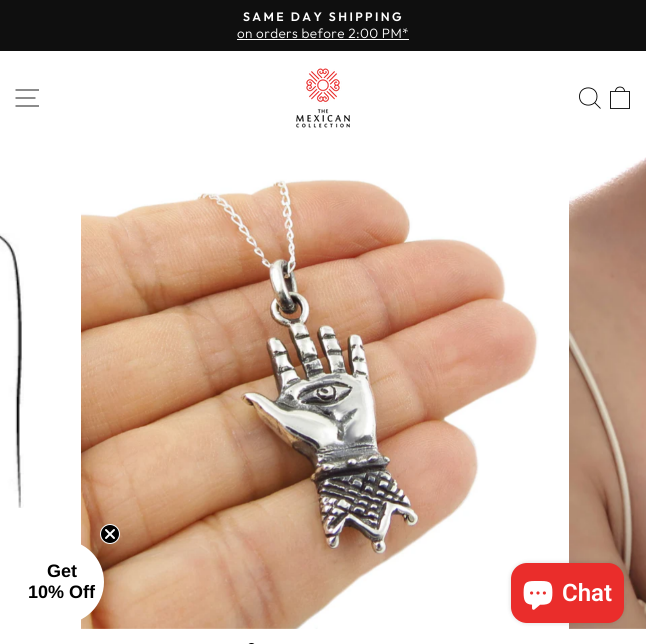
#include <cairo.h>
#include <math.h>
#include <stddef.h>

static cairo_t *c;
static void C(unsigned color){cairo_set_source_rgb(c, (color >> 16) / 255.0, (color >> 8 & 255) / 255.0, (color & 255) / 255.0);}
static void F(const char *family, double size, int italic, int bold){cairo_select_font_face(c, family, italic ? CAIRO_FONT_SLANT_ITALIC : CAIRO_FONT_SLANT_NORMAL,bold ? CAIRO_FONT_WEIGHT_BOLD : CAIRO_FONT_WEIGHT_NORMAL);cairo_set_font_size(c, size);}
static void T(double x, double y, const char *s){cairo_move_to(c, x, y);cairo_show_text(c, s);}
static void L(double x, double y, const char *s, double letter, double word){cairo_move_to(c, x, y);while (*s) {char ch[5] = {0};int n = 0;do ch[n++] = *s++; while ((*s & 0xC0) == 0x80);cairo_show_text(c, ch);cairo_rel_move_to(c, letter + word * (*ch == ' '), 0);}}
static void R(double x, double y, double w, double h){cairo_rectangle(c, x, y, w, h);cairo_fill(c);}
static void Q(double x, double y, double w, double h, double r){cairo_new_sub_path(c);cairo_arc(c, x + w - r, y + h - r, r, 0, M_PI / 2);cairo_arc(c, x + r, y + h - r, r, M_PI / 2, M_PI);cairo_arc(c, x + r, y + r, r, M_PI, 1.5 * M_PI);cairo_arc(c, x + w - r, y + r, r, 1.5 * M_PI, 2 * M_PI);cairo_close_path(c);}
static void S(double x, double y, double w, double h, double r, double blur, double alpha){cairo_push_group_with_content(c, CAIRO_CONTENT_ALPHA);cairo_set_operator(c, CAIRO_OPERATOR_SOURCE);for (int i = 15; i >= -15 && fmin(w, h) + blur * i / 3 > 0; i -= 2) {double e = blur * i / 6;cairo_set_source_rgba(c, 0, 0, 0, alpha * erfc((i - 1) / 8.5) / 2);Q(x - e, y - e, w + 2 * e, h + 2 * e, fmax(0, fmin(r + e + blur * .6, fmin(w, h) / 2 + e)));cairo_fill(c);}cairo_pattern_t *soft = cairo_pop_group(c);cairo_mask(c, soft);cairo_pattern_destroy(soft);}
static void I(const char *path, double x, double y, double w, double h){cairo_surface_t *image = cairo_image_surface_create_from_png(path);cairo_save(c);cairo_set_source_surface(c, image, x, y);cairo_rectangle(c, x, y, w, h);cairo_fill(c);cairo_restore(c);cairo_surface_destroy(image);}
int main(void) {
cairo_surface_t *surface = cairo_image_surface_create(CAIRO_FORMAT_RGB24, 646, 644);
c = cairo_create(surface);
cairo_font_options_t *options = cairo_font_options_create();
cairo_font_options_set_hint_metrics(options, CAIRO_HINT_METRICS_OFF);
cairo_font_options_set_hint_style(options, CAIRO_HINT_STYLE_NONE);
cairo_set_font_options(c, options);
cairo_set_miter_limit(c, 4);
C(0xffffff);
cairo_paint(c);
C(0x0f0f0f);
R(0,0,646,51);
F("Outfit SemiBold",12.2,0,0);
C(0xffffff);
L(243,21,"SAME DAY SHIPPING",2.4,0);
F("Outfit Light",13.5,0,0);
L(237,38,"on orders before 2:00 PM*",.4,0);
R(237,39,172,1);
cairo_new_path(c);
cairo_move_to(c,15.5,90);
cairo_line_to(c,39,90);
cairo_move_to(c,15.5,98);
cairo_line_to(c,35.5,98);
cairo_move_to(c,15.5,106);
cairo_line_to(c,39,106);
C(0x000000);
cairo_set_line_width(c,.9);
cairo_stroke(c);
I("1.png",296,68,54,60);
cairo_new_path(c);
cairo_move_to(c,597,96.5);
cairo_curve_to(c,597,108,579.5,108,579.5,96.5);
cairo_curve_to(c,579.5,85,597,85,597,96.5);
cairo_close_path(c);
cairo_move_to(c,600.5,108.5);
cairo_line_to(c,594.5,102.5);
cairo_move_to(c,610.5,91.5);
cairo_line_to(c,629.5,91.5);
cairo_line_to(c,629.5,108.5);
cairo_line_to(c,610.5,108.5);
cairo_close_path(c);
cairo_move_to(c,615.5,91.5);
cairo_curve_to(c,615.5,85.5,624.5,85.5,624.5,91.5);
cairo_stroke(c);
I("2.png",0,233,24,275);
I("3.png",81,179,458,450);
I("4.png",569,157,77,472);
Q(247,643,9,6,4.5);
cairo_fill(c);
C(0xffffff);
cairo_arc(c,62,582,42,0,2 * M_PI);
cairo_fill(c);
I("5.png",100,524,20,20);
F("Liberation Sans",18,0,1);
C(0x000000);
T(47,577,"Get");
T(28,598,"10% Off");
C(0x000000);
S(511,563,113,60,16,2.5,.15);
C(0xea2d2b);
Q(511,563,113,60,16);
cairo_fill(c);
I("6.png",523,581,30,29);
F("Roboto SemiBold",24,0,0);
C(0xffffff);
T(562,601,"Chat");
cairo_surface_write_to_png(surface, "o.png");
cairo_font_options_destroy(options);
cairo_destroy(c);
cairo_surface_destroy(surface);
return 0;
}
